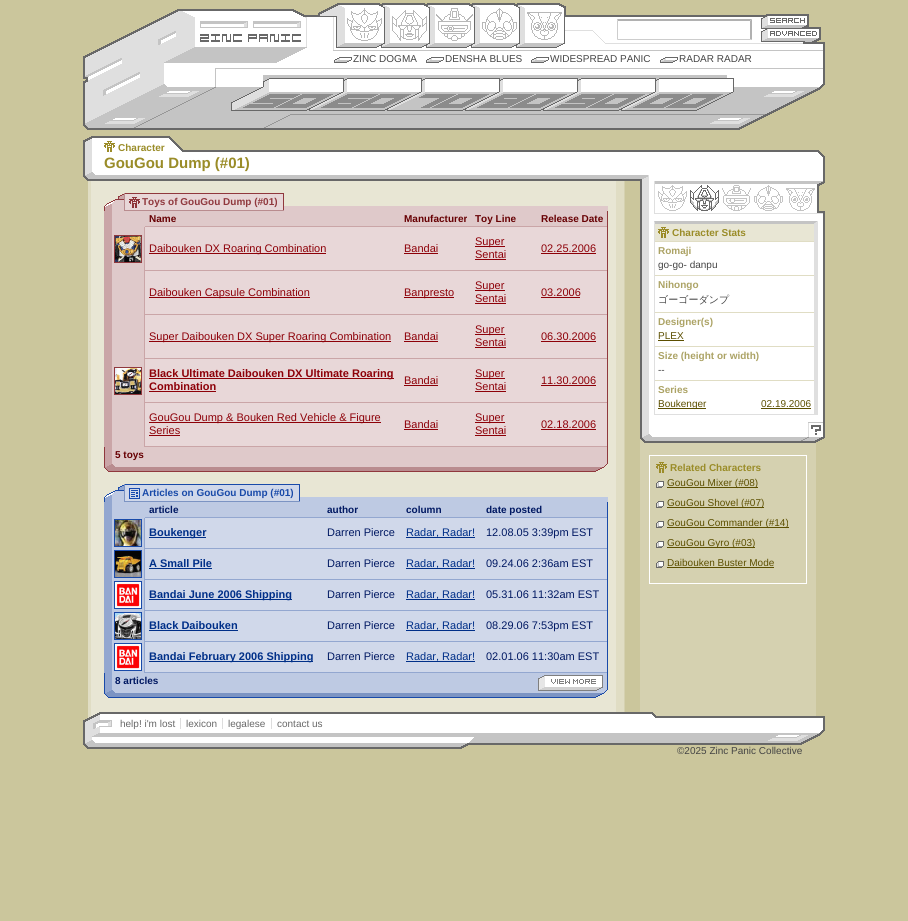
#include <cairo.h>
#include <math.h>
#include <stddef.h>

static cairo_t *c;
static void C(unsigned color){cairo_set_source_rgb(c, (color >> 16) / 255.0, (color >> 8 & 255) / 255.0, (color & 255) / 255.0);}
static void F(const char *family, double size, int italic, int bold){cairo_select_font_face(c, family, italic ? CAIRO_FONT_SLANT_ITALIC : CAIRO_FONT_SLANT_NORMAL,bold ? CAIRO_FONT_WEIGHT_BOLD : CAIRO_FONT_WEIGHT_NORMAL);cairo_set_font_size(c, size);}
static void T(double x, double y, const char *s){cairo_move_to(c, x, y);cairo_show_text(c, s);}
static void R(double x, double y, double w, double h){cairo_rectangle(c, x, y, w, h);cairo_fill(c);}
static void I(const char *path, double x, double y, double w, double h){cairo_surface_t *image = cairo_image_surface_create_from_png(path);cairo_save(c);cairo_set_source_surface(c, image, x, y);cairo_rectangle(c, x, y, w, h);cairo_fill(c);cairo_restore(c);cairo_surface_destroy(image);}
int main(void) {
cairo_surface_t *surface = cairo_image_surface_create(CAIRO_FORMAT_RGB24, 908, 921);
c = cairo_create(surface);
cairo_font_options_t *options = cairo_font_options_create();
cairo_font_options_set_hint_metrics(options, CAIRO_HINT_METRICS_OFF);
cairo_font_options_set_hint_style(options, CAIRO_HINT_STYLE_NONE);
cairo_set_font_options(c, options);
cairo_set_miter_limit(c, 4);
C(0xcbc69c);
cairo_paint(c);
I("4.png",312,3,299,47);
I("9.png",134,68,691,62);
I("1.png",83,9,251,60);
I("2.png",200,21,101,7);
I("3.png",200,34,101,8);
I("5.png",611,15,214,35);
C(0xb1b1b1);
cairo_new_path(c);
cairo_move_to(c,617,19);
cairo_line_to(c,752,19);
cairo_line_to(c,750,21);
cairo_line_to(c,618,21);
cairo_close_path(c);
cairo_fill(c);
cairo_new_path(c);
cairo_move_to(c,752,19);
cairo_line_to(c,752,40);
cairo_line_to(c,750,39);
cairo_line_to(c,750,21);
cairo_close_path(c);
cairo_fill(c);
C(0xcdcdcd);
cairo_new_path(c);
cairo_move_to(c,752,40);
cairo_line_to(c,617,40);
cairo_line_to(c,618,39);
cairo_line_to(c,750,39);
cairo_close_path(c);
cairo_fill(c);
cairo_new_path(c);
cairo_move_to(c,617,40);
cairo_line_to(c,617,19);
cairo_line_to(c,618,21);
cairo_line_to(c,618,39);
cairo_close_path(c);
cairo_fill(c);
I("6.png",761,14,48,13);
I("7.png",761,27,60,15);
C(0xffffff);
R(334,51,489,17);
C(0x686868);
R(823,50,2,18);
C(0xc4c4c4);
R(334,50,489,1);
I("8.png",334,57,18,6);
F("Liberation Sans",10,0,0);
C(0x444444);
T(353,62,"ZINC DOGMA");
I("8.png",426,57,18,6);
T(445,62,"DENSHA BLUES");
I("8.png",531,57,18,6);
T(550,62,"WIDESPREAD PANIC");
I("8.png",660,57,18,6);
T(679,62,"RADAR RADAR");
I("10.png",231,78,503,33);
I("11.png",83,69,133,61);
I("12.png",260,114,510,16);
I("13.png",88,181,728,531);
I("14.png",83,136,742,45);
I("15.png",92,136,91,16);
I("16.png",104,141,11,11);
F("Liberation Sans",10,0,1);
C(0x9a8c28);
T(118,151,"Character");
I("17.png",83,172,566,9);
F("Liberation Sans",15,0,1);
T(104,168,"GouGou Dump (#01)");
C(0xdfc9ca);
R(284,206,324,5);
I("18.png",104,194,20,17);
C(0xe8d7d8);
R(125,194,158,16);
I("19.png",129,197,11,11);
C(0x90383d);
R(124,193,160,1);
R(283,193,1,18);
C(0xb98c8f);
R(124,210,160,1);
R(124,193,1,18);
F("Liberation Sans",10,0,1);
C(0x90383d);
T(142,205,"Toys of GouGou Dump (#01)");
C(0xdfc9ca);
R(112,211,33,16);
C(0xcaa5a7);
R(104,211,8,236);
C(0xdfc9ca);
R(145,211,462,15);
C(0xcaa5a7);
R(145,226,463,1);
C(0x670003);
T(149,222,"Name");
T(404,222,"Manufacturer");
T(475,222,"Toy Line");
C(0x90383d);
R(607,211,1,16);
C(0x670003);
T(541,222,"Release Date");
C(0xdfc9ca);
R(112,227,32,220);
C(0xcaa5a7);
R(144,227,1,220);
cairo_rectangle(c,114.5,235.5,27,27);
C(0x90383d);
cairo_set_line_width(c,1);
cairo_stroke(c);
I("20.png",115,236,26,26);
C(0xe8d7d8);
R(145,227,462,43);
C(0xcaa5a7);
R(145,270,463,1);
C(0x8d0008);
R(149,253,177,1);
F("Liberation Sans",11,0,0);
T(149,252,"Daibouken DX Roaring Combination");
T(404,252,"Bandai");
R(404,253,34,1);
R(475,246,30,1);
T(475,245,"Super");
T(475,258,"Sentai");
R(475,259,31,1);
C(0x90383d);
R(607,227,1,44);
C(0x8d0008);
T(541,252,"02.25.2006");
R(541,253,55,1);
C(0xe8d7d8);
R(145,271,462,43);
C(0xcaa5a7);
R(145,314,463,1);
C(0x8d0008);
R(149,297,161,1);
T(149,296,"Daibouken Capsule Combination");
R(404,297,50,1);
T(404,296,"Banpresto");
R(475,290,30,1);
T(475,289,"Super");
T(475,302,"Sentai");
R(475,303,31,1);
C(0x90383d);
R(607,271,1,44);
C(0x8d0008);
T(541,296,"03.2006");
R(541,297,39,1);
C(0xe8d7d8);
R(145,315,462,43);
C(0xcaa5a7);
R(145,358,463,1);
C(0x8d0008);
R(149,341,242,1);
T(149,340,"Super Daibouken DX Super Roaring Combination");
T(404,340,"Bandai");
R(404,341,34,1);
R(475,334,30,1);
T(475,333,"Super");
T(475,346,"Sentai");
R(475,347,31,1);
C(0x90383d);
R(607,315,1,44);
C(0x8d0008);
T(541,340,"06.30.2006");
R(541,341,55,1);
cairo_rectangle(c,114.5,367.5,27,27);
C(0x90383d);
cairo_stroke(c);
I("21.png",115,368,26,26);
C(0xe8d7d8);
R(145,359,462,43);
C(0xcaa5a7);
R(145,402,463,1);
C(0x8d0008);
R(149,378,245,1);
F("Liberation Sans",11,0,1);
T(149,377,"Black Ultimate Daibouken DX Ultimate Roaring");
T(149,390,"Combination");
R(149,391,67,1);
F("Liberation Sans",11,0,0);
T(404,384,"Bandai");
R(404,385,34,1);
R(475,378,30,1);
T(475,377,"Super");
T(475,390,"Sentai");
R(475,391,31,1);
C(0x90383d);
R(607,359,1,44);
C(0x8d0008);
T(541,384,"11.30.2006");
R(541,385,55,1);
C(0xe8d7d8);
R(145,403,462,43);
C(0xcaa5a7);
R(145,446,463,1);
C(0x8d0008);
R(149,422,232,1);
T(149,421,"GouGou Dump & Bouken Red Vehicle & Figure");
T(149,434,"Series");
R(149,435,31,1);
T(404,428,"Bandai");
R(404,429,34,1);
R(475,422,30,1);
T(475,421,"Super");
T(475,434,"Sentai");
R(475,435,31,1);
C(0x90383d);
R(607,403,1,44);
C(0x8d0008);
T(541,428,"02.18.2006");
R(541,429,55,1);
I("22.png",124,447,484,25);
I("23.png",104,447,20,25);
F("Liberation Sans",10,0,1);
C(0x670003);
T(115,458,"5 toys");
C(0xbecae3);
R(300,497,308,5);
I("24.png",104,485,20,17);
C(0xd0d8ea);
R(125,485,174,16);
I("25.png",129,488,11,11);
C(0x194aa9);
R(124,484,176,1);
R(299,484,1,18);
C(0x7c94c3);
R(124,501,176,1);
R(124,484,1,18);
C(0x194aa9);
T(142,496,"Articles on GouGou Dump (#01)");
C(0xbecae3);
R(112,502,33,16);
C(0x93a7d0);
R(104,502,8,171);
C(0xbecae3);
R(145,502,462,15);
C(0x93a7d0);
R(145,517,463,1);
C(0x001862);
T(149,513,"article");
T(327,513,"author");
T(406,513,"column");
C(0x194aa9);
R(607,502,1,16);
C(0x001862);
T(486,513,"date posted");
C(0xbecae3);
R(112,518,32,155);
C(0x93a7d0);
R(144,518,1,155);
cairo_rectangle(c,114.5,519.5,27,27);
C(0x194aa9);
cairo_stroke(c);
I("26.png",115,520,26,26);
C(0xd0d8ea);
R(145,518,462,30);
C(0x93a7d0);
R(145,548,463,1);
C(0x002f88);
R(149,537,57,1);
F("Liberation Sans",11,0,1);
T(149,536,"Boukenger");
F("Liberation Sans",11,0,0);
C(0x001862);
T(327,536,"Darren Pierce");
C(0x002f88);
R(406,537,69,1);
T(406,536,"Radar, Radar!");
C(0x194aa9);
R(607,518,1,31);
C(0x001862);
T(486,536,"12.08.05 3:39pm EST");
cairo_rectangle(c,114.5,550.5,27,27);
C(0x194aa9);
cairo_stroke(c);
I("27.png",115,551,26,26);
C(0xd0d8ea);
R(145,549,462,30);
C(0x93a7d0);
R(145,579,463,1);
F("Liberation Sans",11,0,1);
C(0x002f88);
T(149,567,"A Small Pile");
R(149,568,63,1);
F("Liberation Sans",11,0,0);
C(0x001862);
T(327,567,"Darren Pierce");
C(0x002f88);
R(406,568,69,1);
T(406,567,"Radar, Radar!");
C(0x194aa9);
R(607,549,1,31);
C(0x001862);
T(486,567,"09.24.06 2:36am EST");
cairo_rectangle(c,114.5,581.5,27,27);
C(0x194aa9);
cairo_stroke(c);
I("28.png",115,582,26,26);
C(0xd0d8ea);
R(145,580,462,30);
C(0x93a7d0);
R(145,610,463,1);
C(0x002f88);
R(149,599,143,1);
F("Liberation Sans",11,0,1);
T(149,598,"Bandai June 2006 Shipping");
F("Liberation Sans",11,0,0);
C(0x001862);
T(327,598,"Darren Pierce");
C(0x002f88);
R(406,599,69,1);
T(406,598,"Radar, Radar!");
C(0x194aa9);
R(607,580,1,31);
C(0x001862);
T(486,598,"05.31.06 11:32am EST");
cairo_rectangle(c,114.5,612.5,27,27);
C(0x194aa9);
cairo_stroke(c);
I("29.png",115,613,26,26);
C(0xd0d8ea);
R(145,611,462,30);
C(0x93a7d0);
R(145,641,463,1);
F("Liberation Sans",11,0,1);
C(0x002f88);
T(149,629,"Black Daibouken");
R(149,630,89,1);
F("Liberation Sans",11,0,0);
C(0x001862);
T(327,629,"Darren Pierce");
C(0x002f88);
R(406,630,69,1);
T(406,629,"Radar, Radar!");
C(0x194aa9);
R(607,611,1,31);
C(0x001862);
T(486,629,"08.29.06 7:53pm EST");
cairo_rectangle(c,114.5,643.5,27,27);
C(0x194aa9);
cairo_stroke(c);
I("30.png",115,644,26,26);
C(0xd0d8ea);
R(145,642,462,30);
C(0x93a7d0);
R(145,672,463,1);
C(0x002f88);
R(149,661,164,1);
F("Liberation Sans",11,0,1);
T(149,660,"Bandai February 2006 Shipping");
F("Liberation Sans",11,0,0);
C(0x001862);
T(327,660,"Darren Pierce");
C(0x002f88);
R(406,661,69,1);
T(406,660,"Radar, Radar!");
C(0x194aa9);
R(607,642,1,31);
C(0x001862);
T(486,660,"02.01.06 11:30am EST");
I("31.png",124,673,484,25);
I("32.png",104,673,20,25);
F("Liberation Sans",10,0,1);
T(115,684,"8 articles");
I("33.png",538,675,65,16);
I("34.png",640,181,185,40);
I("35.png",690,185,29,26);
I("36.png",640,221,185,201);
C(0xc4c4c4);
cairo_new_path(c);
cairo_move_to(c,654,221);
cairo_line_to(c,818,221);
cairo_line_to(c,814,224);
cairo_line_to(c,655,224);
cairo_close_path(c);
cairo_fill(c);
C(0xdfdfdf);
cairo_new_path(c);
cairo_move_to(c,818,221);
cairo_line_to(c,818,415);
cairo_line_to(c,814,414);
cairo_line_to(c,814,224);
cairo_close_path(c);
cairo_fill(c);
R(654,414,164,1);
cairo_new_path(c);
cairo_move_to(c,654,415);
cairo_line_to(c,654,221);
cairo_line_to(c,655,224);
cairo_line_to(c,655,414);
cairo_close_path(c);
cairo_fill(c);
C(0xe8e6d4);
R(655,224,159,17);
I("37.png",658,227,11,11);
C(0x9a8c28);
T(672,236,"Character Stats");
C(0xe0ddc4);
R(655,241,159,1);
C(0xaca365);
T(658,254,"Romaji");
F("Liberation Sans",10,0,0);
C(0x444444);
T(658,268,"go-go- danpu");
C(0xe0ddc4);
R(655,275,159,1);
F("Liberation Sans",10,0,1);
C(0xaca365);
T(658,288,"Nihongo");
F("WenQuanYi Zen Hei Medium",10,0,0);
C(0x444444);
T(658,303,"ゴーゴーダンプ");
C(0xe0ddc4);
R(655,312,159,1);
F("Liberation Sans",10,0,1);
C(0xaca365);
T(658,325,"Designer(s)");
F("Liberation Sans",10,0,0);
C(0x5c4f00);
T(658,339,"PLEX");
R(658,340,26,1);
C(0xe0ddc4);
R(655,346,159,1);
F("Liberation Sans",10,0,1);
C(0xaca365);
T(658,359,"Size (height or width)");
F("Liberation Sans",10,0,0);
C(0x444444);
T(658,373,"--");
C(0xe0ddc4);
R(655,380,159,1);
F("Liberation Sans",10,0,1);
C(0xaca365);
T(658,393,"Series");
C(0x5c4f00);
R(658,408,48,1);
F("Liberation Sans",10,0,0);
T(658,407,"Boukenger");
T(761,407,"02.19.2006");
R(761,408,50,1);
I("38.png",640,422,185,21);
cairo_rectangle(c,649.5,455.5,157,128);
C(0xffffff);
cairo_stroke(c);
I("39.png",656,462,11,11);
F("Liberation Sans",10,0,1);
C(0x9a8c28);
T(670,471,"Related Characters");
I("40.png",656,481,8,7);
C(0x5c4f00);
R(667,487,91,1);
F("Liberation Sans",10,0,0);
T(667,486,"GouGou Mixer (#08)");
I("40.png",656,501,8,7);
R(667,507,97,1);
T(667,506,"GouGou Shovel (#07)");
I("40.png",656,521,8,7);
R(667,527,122,1);
T(667,526,"GouGou Commander (#14)");
I("40.png",656,541,8,7);
R(667,547,88,1);
T(667,546,"GouGou Gyro (#03)");
I("40.png",656,561,8,7);
T(667,566,"Daibouken Buster Mode");
R(667,567,107,1);
I("41.png",83,712,742,37);
C(0x686868);
T(120,727,"help! i'm lost");
C(0xdddddd);
R(180,718,1,11);
C(0x686868);
T(186,727,"lexicon");
C(0xdddddd);
R(222,718,1,11);
C(0x686868);
T(228,727,"legalese");
C(0xdddddd);
R(271,718,1,11);
C(0x686868);
T(277,727,"contact us");
C(0x444444);
T(677,754,"©2025 Zinc Panic Collective");
cairo_surface_write_to_png(surface, "o.png");
cairo_font_options_destroy(options);
cairo_destroy(c);
cairo_surface_destroy(surface);
return 0;
}
